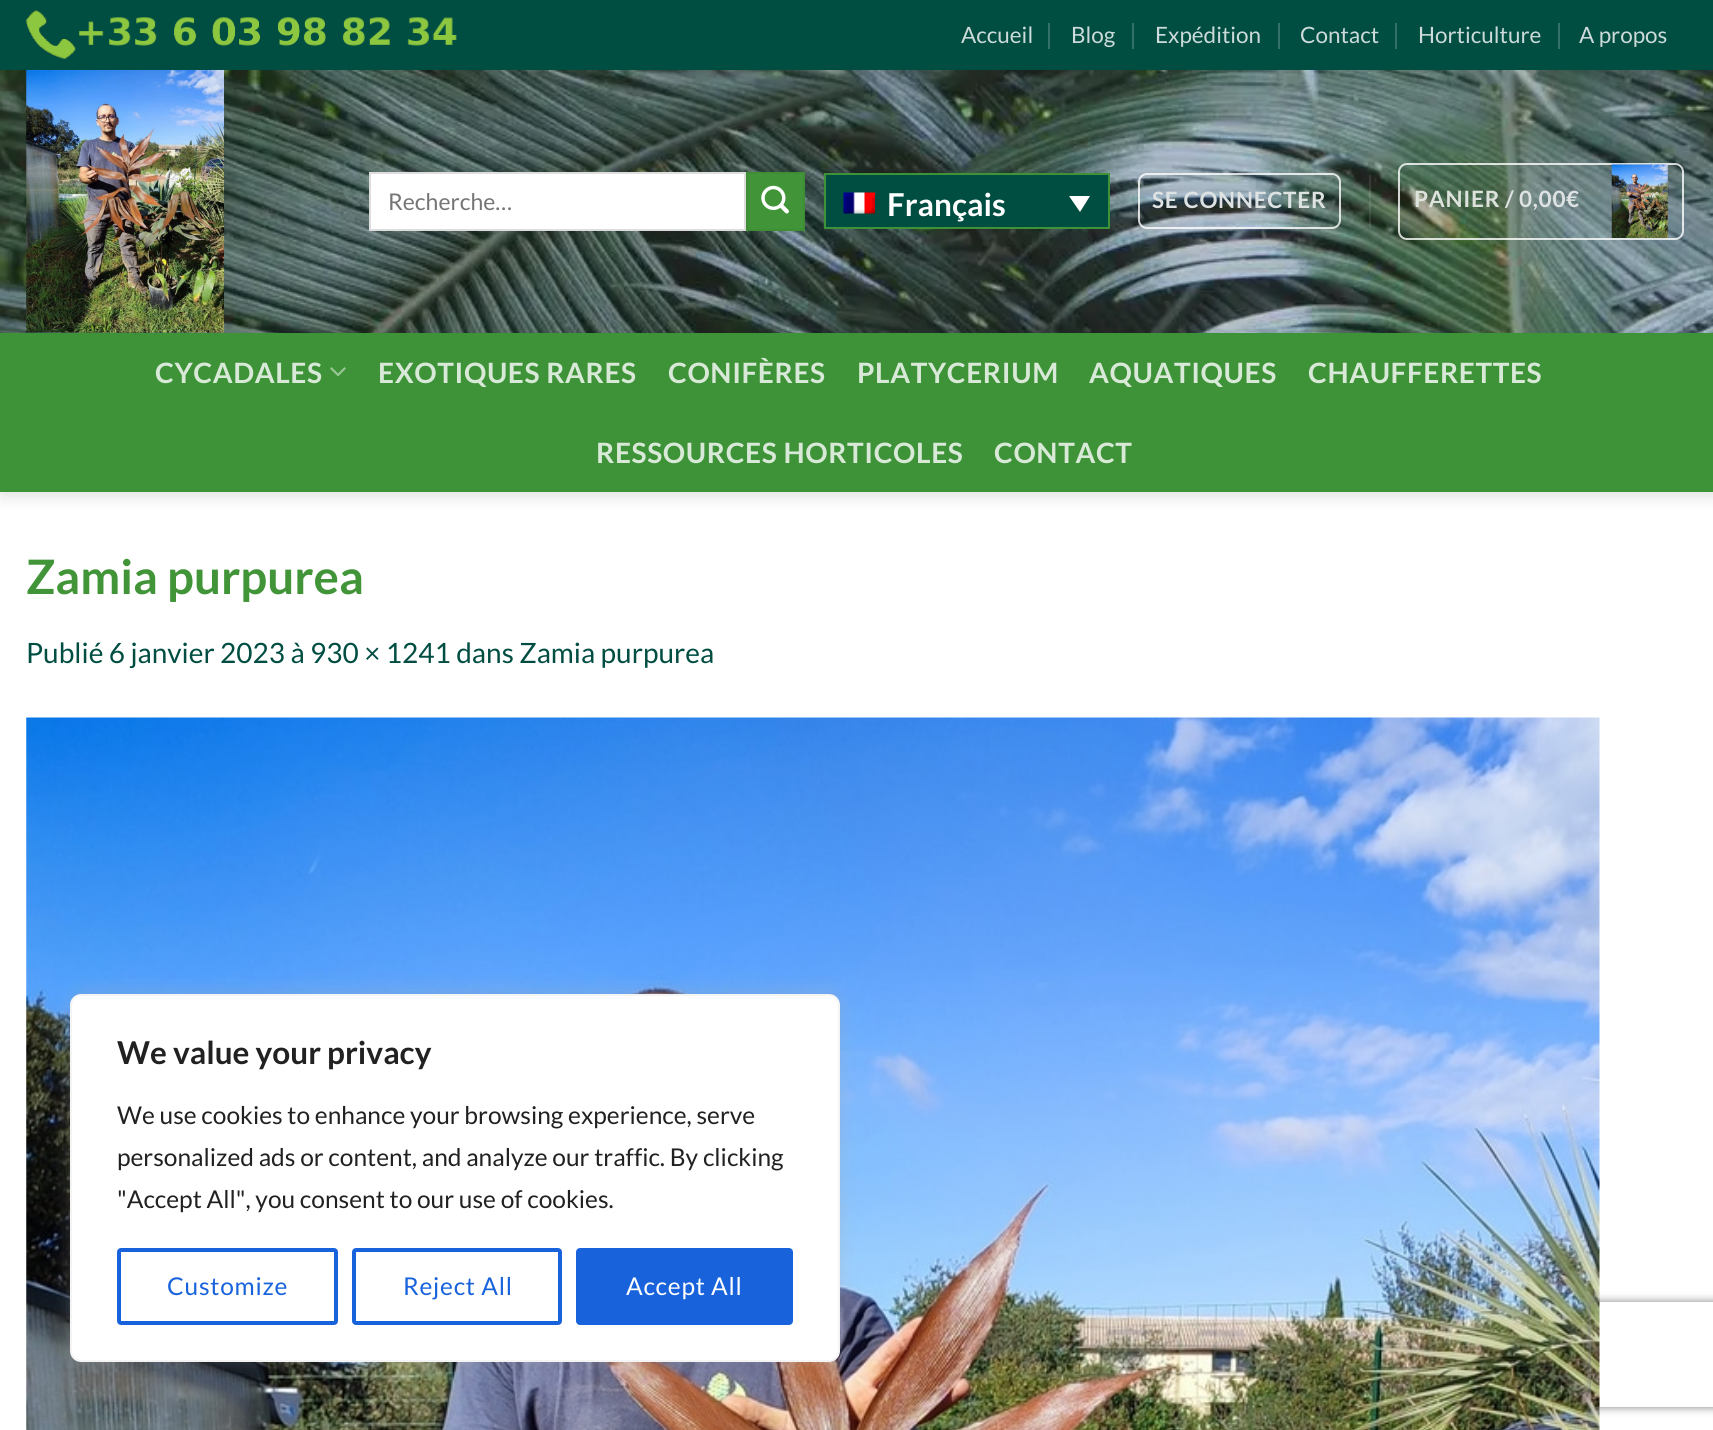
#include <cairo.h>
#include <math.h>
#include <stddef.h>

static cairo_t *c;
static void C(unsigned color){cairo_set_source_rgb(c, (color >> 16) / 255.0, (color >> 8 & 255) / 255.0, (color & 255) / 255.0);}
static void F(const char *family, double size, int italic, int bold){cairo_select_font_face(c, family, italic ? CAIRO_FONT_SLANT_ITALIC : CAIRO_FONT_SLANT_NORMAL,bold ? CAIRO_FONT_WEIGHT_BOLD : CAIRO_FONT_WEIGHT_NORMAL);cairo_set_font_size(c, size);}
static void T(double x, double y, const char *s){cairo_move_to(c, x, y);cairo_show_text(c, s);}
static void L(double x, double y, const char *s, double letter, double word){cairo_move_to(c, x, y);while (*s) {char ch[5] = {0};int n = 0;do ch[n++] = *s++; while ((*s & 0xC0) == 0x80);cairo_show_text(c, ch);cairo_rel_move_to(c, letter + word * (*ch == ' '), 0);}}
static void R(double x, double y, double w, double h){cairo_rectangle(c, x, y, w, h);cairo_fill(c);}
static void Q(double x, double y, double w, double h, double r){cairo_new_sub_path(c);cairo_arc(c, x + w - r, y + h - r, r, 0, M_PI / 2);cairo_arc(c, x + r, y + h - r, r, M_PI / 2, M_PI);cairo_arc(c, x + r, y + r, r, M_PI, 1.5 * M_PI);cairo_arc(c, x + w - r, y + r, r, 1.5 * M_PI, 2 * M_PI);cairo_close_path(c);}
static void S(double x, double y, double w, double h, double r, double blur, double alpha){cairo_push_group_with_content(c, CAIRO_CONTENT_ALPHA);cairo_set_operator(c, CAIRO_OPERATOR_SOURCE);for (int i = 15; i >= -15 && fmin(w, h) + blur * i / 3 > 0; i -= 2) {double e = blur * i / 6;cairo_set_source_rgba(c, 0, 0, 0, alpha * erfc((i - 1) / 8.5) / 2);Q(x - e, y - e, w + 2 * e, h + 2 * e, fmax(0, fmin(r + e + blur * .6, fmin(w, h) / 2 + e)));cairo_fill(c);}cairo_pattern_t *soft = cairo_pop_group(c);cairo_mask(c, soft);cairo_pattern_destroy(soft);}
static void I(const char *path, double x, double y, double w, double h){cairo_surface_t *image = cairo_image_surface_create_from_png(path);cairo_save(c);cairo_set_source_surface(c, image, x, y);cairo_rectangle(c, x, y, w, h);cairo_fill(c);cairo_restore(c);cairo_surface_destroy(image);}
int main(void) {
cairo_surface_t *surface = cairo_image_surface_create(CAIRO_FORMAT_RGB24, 1713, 1430);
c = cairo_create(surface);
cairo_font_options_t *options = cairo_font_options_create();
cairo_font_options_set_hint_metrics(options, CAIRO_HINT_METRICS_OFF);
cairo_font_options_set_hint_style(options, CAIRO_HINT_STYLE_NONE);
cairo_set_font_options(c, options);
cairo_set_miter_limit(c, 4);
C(0xffffff);
cairo_paint(c);
C(0x000000);
S(2,2,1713,492,0,9,.15);
C(0x004d42);
R(0,0,1713,70);
I("1.png",26,10,431,49);
F("Lato",22.5,0,0);
C(0xccdbd9);
T(961,43,"Accueil");
C(0x337168);
R(1048,23,2,26);
C(0xccdbd9);
T(1071,43,"Blog");
C(0x337168);
R(1132,23,2,26);
C(0xccdbd9);
T(1155,43,"Expédition");
C(0x337168);
R(1278,23,2,26);
C(0xccdbd9);
T(1300,43,"Contact");
C(0x337168);
R(1395,23,2,26);
C(0xccdbd9);
T(1418,43,"Horticulture");
C(0x337168);
R(1558,23,2,26);
C(0xccdbd9);
T(1579,43,"A propos");
I("2.png",0,70,1713,263);
I("3.png",26,70,198,263);
C(0xffffff);
cairo_rectangle(c,370,173,375,57);
cairo_fill_preserve(c);
C(0xdddddd);
cairo_stroke(c);
F("Lato",23,0,0);
C(0x757575);
T(388,210,"Recherche…");
C(0x419538);
cairo_rectangle(c,747,173,57,57);
cairo_fill_preserve(c);
C(0x3e8e35);
cairo_stroke(c);
I("4.png",761,185,28,29);
C(0x004d42);
cairo_rectangle(c,825,174,284,54);
cairo_fill_preserve(c);
C(0x3e9338);
cairo_stroke(c);
I("5.png",843,192,32,22);
F("Lato",31.5,0,1);
C(0xffffff);
T(887,216,"Français");
cairo_new_path(c);
cairo_move_to(c,1069,196);
cairo_line_to(c,1090,196);
cairo_line_to(c,1080,212);
cairo_close_path(c);
cairo_fill(c);
Q(1139,174,201,54,8);
cairo_set_source_rgba(c,1,1,1,0.8);
cairo_stroke(c);
F("Lato",22.5,0,1);
C(0xdee2e3);
L(1152,208,"SE CONNECTER",.75,0);
cairo_set_source_rgba(c,1,1,1,0.1);
R(1369,175,2,53);
Q(1399,164,284,75,8);
cairo_set_source_rgba(c,1,1,1,0.8);
cairo_stroke(c);
C(0xdde2dd);
L(1414,207,"PANIER",.75,0);
C(0xdee2e3);
L(1505,207,"/",.75,0);
L(1519,207,"0,00",.75,0);
L(1566,207,"€",.75,0);
I("6.png",1611,164,57,74);
C(0x3e9338);
R(0,333,1713,159);
F("Lato",28,0,1);
C(0xd8e9d7);
L(155,383,"CYCADALES",.6,0);
I("7.png",330,367,16,10);
L(378,383,"EXOTIQUES RARES",.6,0);
L(668,383,"CONIFÈRES",.6,0);
L(857,383,"PLATYCERIUM",.6,0);
L(1089,383,"AQUATIQUES",.6,0);
L(1308,383,"CHAUFFERETTES",.6,0);
L(596,463,"RESSOURCES HORTICOLES",.6,0);
L(994,463,"CONTACT",.6,0);
F("Lato",47.5,0,1);
C(0x419538);
T(26,594,"Zamia purpurea");
F("Lato",28,0,0);
C(0x004d42);
T(26,663,"Publié 6 janvier 2023 à 930 × 1241 dans Zamia purpurea");
I("8.png",26,717,1574,713);
C(0xacabab);
S(70,992,770,368,11,9,.3);
C(0xffffff);
Q(71,995,768,366,10);
cairo_fill_preserve(c);
C(0xf4f4f4);
cairo_stroke(c);
F("Lato",31.5,0,1);
C(0x212121);
T(117,1064,"We value your privacy");
F("Lato",24.5,0,0);
T(117,1124,"We use cookies to enhance your browsing experience, serve");
T(117,1166,"personalized ads or content, and analyze our traffic. By clicking");
T(117,1208,"\"Accept All\", you consent to our use of cookies.");
Q(119,1250,217,73,2);
C(0x1863dc);
cairo_set_line_width(c,4);
cairo_stroke(c);
L(167,1295,"Customize",.75,0);
Q(354,1250,206,73,2);
cairo_stroke(c);
L(403,1295,"Reject All",.75,0);
Q(578,1250,213,73,2);
cairo_fill_preserve(c);
cairo_stroke(c);
C(0xffffff);
L(626,1295,"Accept All",.75,0);
cairo_save(c);
cairo_set_fill_rule(c,CAIRO_FILL_RULE_EVEN_ODD);
cairo_new_path(c);
cairo_move_to(c,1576,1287);
cairo_line_to(c,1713,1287);
cairo_line_to(c,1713,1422);
cairo_line_to(c,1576,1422);
cairo_close_path(c);
cairo_move_to(c,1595,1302);
cairo_line_to(c,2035,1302);
cairo_curve_to(c,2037,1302,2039,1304,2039,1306);
cairo_line_to(c,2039,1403);
cairo_curve_to(c,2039,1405,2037,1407,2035,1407);
cairo_line_to(c,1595,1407);
cairo_curve_to(c,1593,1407,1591,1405,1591,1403);
cairo_line_to(c,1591,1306);
cairo_curve_to(c,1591,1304,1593,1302,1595,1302);
cairo_close_path(c);
cairo_clip(c);
C(0x808080);
S(1591,1302,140,105,4,4.5,1);
cairo_restore(c);
cairo_surface_write_to_png(surface, "o.png");
cairo_font_options_destroy(options);
cairo_destroy(c);
cairo_surface_destroy(surface);
return 0;
}
